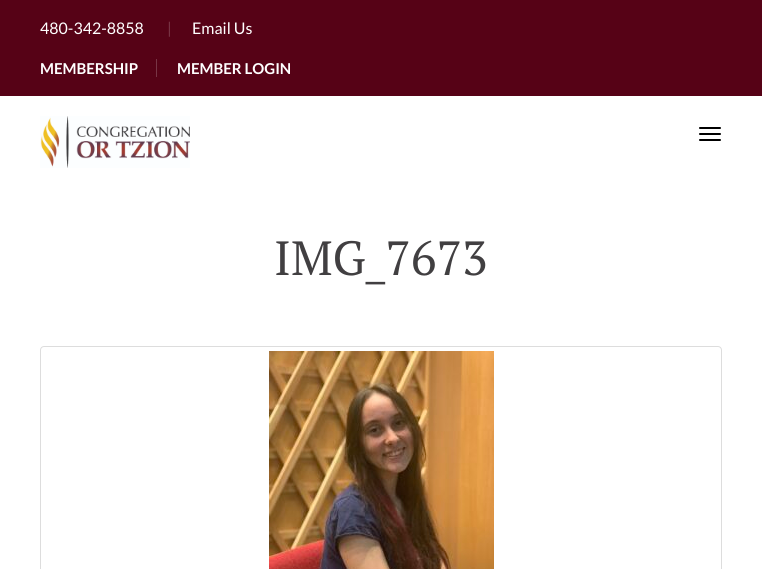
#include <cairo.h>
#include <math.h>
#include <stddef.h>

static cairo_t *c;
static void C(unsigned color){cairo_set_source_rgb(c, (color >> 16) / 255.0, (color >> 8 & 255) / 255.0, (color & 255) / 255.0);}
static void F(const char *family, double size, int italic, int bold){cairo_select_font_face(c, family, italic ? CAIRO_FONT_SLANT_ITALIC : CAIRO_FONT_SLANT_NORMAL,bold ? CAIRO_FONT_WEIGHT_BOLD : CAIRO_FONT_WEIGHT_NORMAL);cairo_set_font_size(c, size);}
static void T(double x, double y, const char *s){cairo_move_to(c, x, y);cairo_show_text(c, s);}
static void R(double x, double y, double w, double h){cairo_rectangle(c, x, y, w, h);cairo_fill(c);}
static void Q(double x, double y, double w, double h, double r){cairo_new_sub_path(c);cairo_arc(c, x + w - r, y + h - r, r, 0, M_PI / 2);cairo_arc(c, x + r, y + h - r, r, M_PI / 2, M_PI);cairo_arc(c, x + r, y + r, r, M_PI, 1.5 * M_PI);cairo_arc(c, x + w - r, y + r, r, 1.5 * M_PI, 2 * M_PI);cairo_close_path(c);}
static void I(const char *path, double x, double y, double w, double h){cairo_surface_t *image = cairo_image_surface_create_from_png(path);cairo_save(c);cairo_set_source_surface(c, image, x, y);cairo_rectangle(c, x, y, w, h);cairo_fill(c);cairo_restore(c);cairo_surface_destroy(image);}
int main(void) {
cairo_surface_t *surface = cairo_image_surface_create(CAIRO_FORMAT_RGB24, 762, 569);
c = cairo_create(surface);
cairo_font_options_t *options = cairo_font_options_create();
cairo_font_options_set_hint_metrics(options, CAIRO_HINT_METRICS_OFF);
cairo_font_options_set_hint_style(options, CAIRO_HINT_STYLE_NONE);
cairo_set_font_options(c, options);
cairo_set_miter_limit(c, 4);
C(0x560216);
cairo_paint(c);
F("Lato",16,0,0);
C(0xffffff);
T(40,34,"480-342-8858");
C(0x783545);
T(167,34,"|");
C(0xffffff);
T(192,34,"Email Us");
F("Lato",15,0,1);
T(40,74,"MEMBERSHIP");
T(177,74,"MEMBER LOGIN");
C(0x783545);
R(156,59,1,18);
C(0xffffff);
R(0,96,762,473);
I("1.png",40,116,150,52);
C(0x000000);
Q(699,127,22,2,1);
cairo_fill(c);
Q(699,133,22,2,1);
cairo_fill(c);
Q(699,139,22,2,1);
cairo_fill(c);
F("PT Serif",48,0,0);
C(0x413f41);
T(274,275,"IMG_7673");
Q(40.5,346.5,681,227,3.5);
C(0xdddddd);
cairo_set_line_width(c,1);
cairo_stroke(c);
I("2.png",269,351,225,218);
cairo_surface_write_to_png(surface, "o.png");
cairo_font_options_destroy(options);
cairo_destroy(c);
cairo_surface_destroy(surface);
return 0;
}
